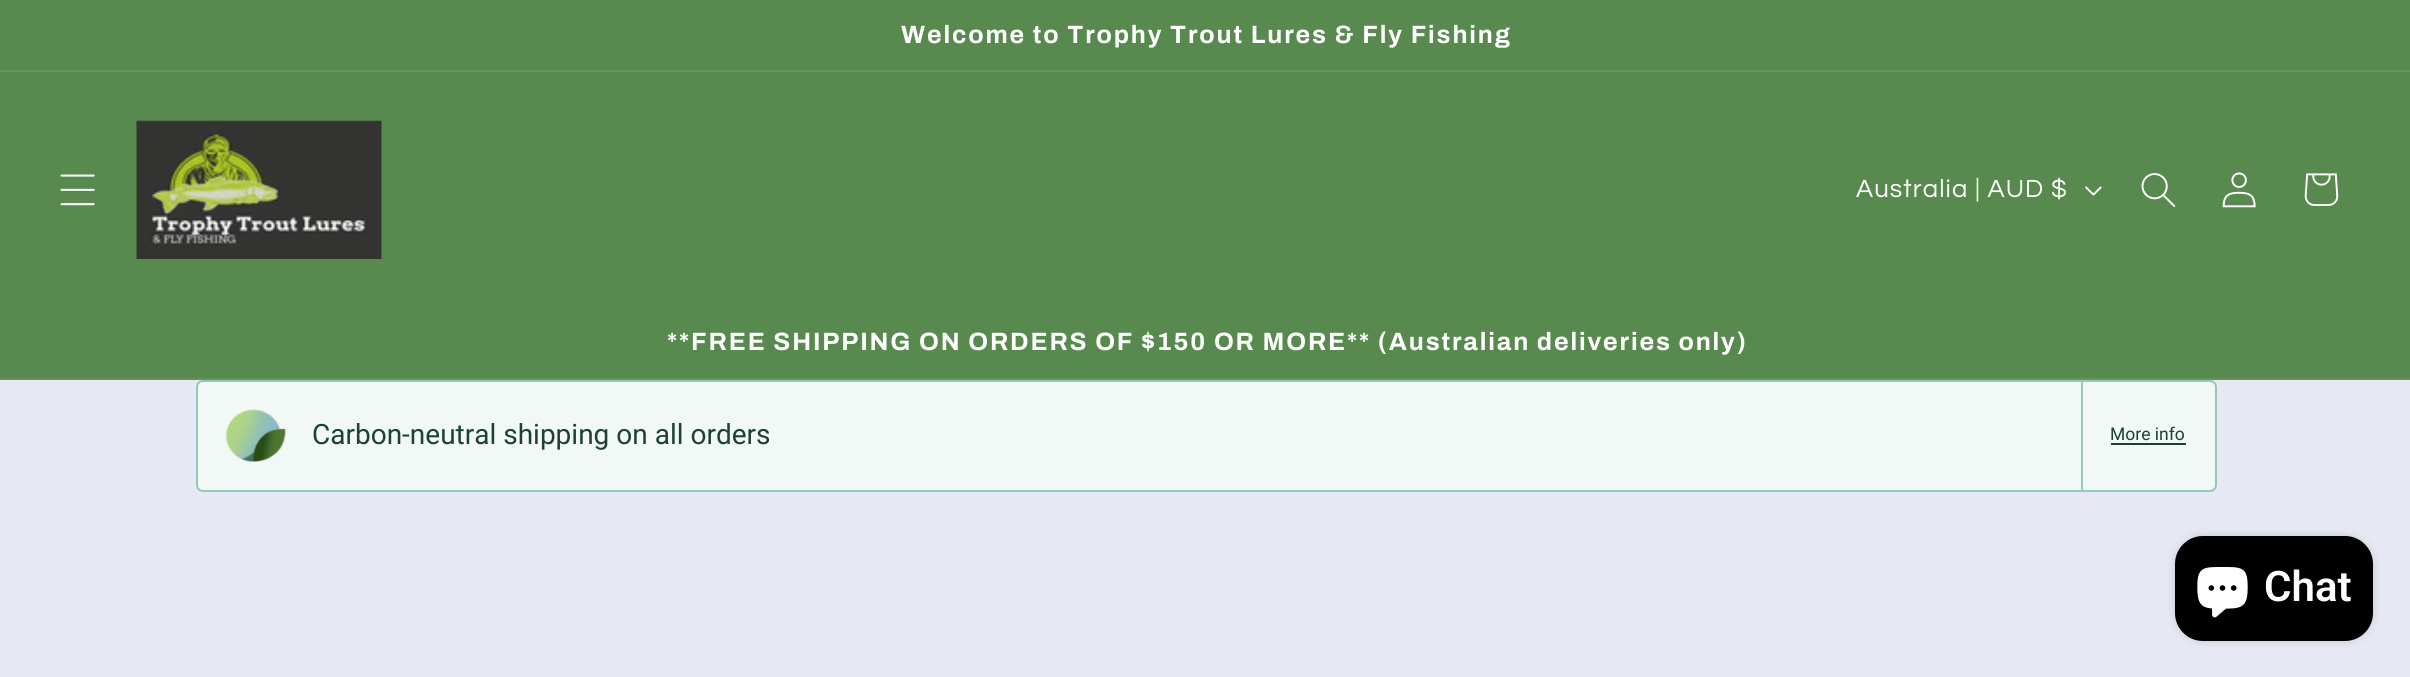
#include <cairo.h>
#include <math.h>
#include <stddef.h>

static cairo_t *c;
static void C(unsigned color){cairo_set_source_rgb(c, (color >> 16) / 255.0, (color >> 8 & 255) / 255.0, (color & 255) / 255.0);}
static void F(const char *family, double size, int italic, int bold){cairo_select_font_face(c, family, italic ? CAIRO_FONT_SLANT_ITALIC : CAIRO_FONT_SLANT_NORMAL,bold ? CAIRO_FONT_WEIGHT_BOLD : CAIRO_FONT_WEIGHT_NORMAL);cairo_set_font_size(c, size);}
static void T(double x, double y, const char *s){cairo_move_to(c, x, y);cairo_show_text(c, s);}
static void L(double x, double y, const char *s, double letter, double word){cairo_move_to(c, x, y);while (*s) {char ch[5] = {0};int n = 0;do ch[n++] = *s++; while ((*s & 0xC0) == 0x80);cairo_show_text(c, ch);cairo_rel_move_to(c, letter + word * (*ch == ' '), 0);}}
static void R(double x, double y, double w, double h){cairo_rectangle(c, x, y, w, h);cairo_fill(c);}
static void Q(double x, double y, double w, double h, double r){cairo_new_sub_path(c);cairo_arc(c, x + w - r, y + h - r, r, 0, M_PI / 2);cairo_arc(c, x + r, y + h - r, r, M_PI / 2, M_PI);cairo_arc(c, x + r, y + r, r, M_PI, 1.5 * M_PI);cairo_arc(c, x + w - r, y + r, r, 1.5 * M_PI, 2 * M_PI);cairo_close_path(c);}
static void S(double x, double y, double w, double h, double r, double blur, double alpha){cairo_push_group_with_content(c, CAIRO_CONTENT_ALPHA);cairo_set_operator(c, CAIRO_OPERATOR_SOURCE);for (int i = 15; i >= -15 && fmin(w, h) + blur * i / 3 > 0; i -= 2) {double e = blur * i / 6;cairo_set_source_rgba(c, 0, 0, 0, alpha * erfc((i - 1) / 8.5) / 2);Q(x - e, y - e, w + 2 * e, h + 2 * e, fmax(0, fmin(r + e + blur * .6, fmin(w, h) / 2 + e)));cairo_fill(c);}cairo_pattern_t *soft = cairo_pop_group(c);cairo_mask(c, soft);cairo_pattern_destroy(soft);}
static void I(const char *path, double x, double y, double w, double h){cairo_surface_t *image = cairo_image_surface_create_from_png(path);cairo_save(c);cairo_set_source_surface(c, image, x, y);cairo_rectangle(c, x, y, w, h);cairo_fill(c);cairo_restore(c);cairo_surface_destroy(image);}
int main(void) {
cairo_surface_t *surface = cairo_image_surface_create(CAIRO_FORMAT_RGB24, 2410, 677);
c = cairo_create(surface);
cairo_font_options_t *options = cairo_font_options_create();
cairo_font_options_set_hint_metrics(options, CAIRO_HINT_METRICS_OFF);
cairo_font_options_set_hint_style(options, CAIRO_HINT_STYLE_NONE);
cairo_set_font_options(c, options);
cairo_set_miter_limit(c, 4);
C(0xe6e9f3);
cairo_paint(c);
C(0x588a4f);
R(0,0,2410,70);
C(0x65935d);
R(0,70,2410,2);
F("Archivo",25.05,0,1);
C(0xffffff);
L(901,43,"Welcome to Trophy Trout Lures & Fly Fishing",1.85,0);
C(0x588a4f);
R(0,72,2410,306);
I("1.png",60,174,35,32);
I("2.png",136,120,246,139);
F("Questrial",25.75,0,0);
C(0xffffff);
L(1856,197,"Australia | AUD $",1.1,0);
I("3.png",2085,186,17,10);
I("4.png",2141,173,35,34);
I("5.png",2222,172,34,36);
I("6.png",2304,173,35,33);
C(0x65935d);
R(0,378,2410,2);
F("Archivo",25.05,0,1);
C(0xffffff);
L(667,350,"**FREE SHIPPING ON ORDERS OF $150 OR MORE** (Australian deliveries only)",1.85,0);
C(0xf1f8f5);
Q(197,381,2019,110,6);
cairo_fill_preserve(c);
C(0x95c9b4);
cairo_stroke(c);
R(2081,382,2,108);
I("7.png",225,409,61,53);
F("Roboto",28,0,0);
C(0x1d4136);
T(312,444,"Carbon-neutral shipping on all orders");
F("Roboto",17.5,0,0);
T(2110,440,"More info");
R(2111,443,75,2);
C(0x000000);
S(2175,536,198,105,28,4.5,.15);
C(0x000000);
Q(2175,536,198,105,28);
cairo_fill(c);
I("8.png",2197,567,51,51);
F("Roboto SemiBold",42,0,0);
C(0xffffff);
T(2264,601,"Chat");
cairo_surface_write_to_png(surface, "o.png");
cairo_font_options_destroy(options);
cairo_destroy(c);
cairo_surface_destroy(surface);
return 0;
}
